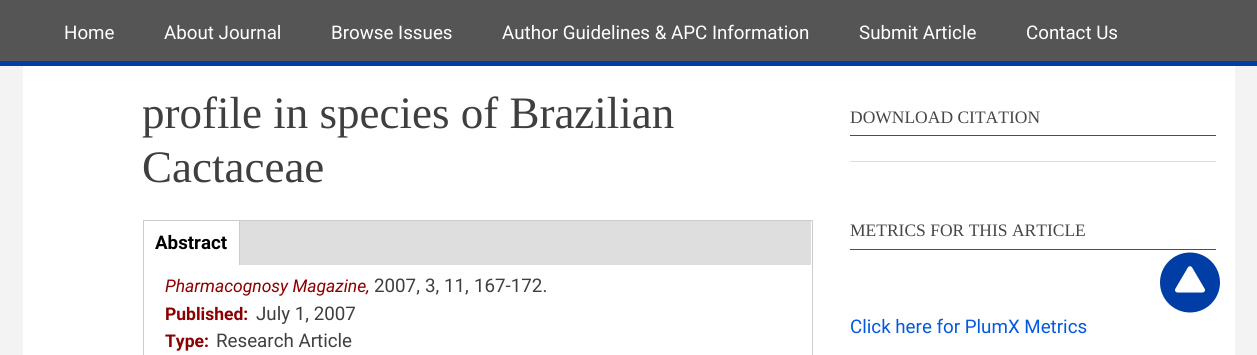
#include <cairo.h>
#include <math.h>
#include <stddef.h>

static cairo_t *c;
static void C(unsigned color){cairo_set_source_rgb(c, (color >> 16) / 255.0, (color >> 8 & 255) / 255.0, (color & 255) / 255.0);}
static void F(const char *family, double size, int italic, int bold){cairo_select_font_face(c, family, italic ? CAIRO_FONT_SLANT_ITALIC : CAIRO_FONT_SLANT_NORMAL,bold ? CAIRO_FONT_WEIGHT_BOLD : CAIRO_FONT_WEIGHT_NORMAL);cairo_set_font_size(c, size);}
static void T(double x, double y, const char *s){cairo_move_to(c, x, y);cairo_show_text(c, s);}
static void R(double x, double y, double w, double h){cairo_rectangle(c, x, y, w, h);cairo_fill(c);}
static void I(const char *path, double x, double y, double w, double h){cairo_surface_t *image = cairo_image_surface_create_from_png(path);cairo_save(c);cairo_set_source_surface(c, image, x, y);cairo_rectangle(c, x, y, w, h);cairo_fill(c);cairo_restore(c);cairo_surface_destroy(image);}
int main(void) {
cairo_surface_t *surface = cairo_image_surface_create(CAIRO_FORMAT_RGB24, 1257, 355);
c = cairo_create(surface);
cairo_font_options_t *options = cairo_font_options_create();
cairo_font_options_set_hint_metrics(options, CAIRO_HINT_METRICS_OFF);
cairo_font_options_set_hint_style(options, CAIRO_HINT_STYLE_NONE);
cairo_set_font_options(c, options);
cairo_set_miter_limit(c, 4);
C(0xf3f3f3);
cairo_paint(c);
C(0x555555);
R(0,0,1257,61);
C(0x003da5);
R(0,61,1257,5);
F("Roboto",18.75,0,0);
C(0xffffff);
T(64,39,"Home");
T(164,39,"About Journal");
T(331,39,"Browse Issues");
T(502,39,"Author Guidelines & APC Information");
T(859,39,"Submit Article");
T(1026,39,"Contact Us");
R(23,66,1212,289);
F("Liberation Serif",45,0,0);
C(0x3f3f3f);
T(142,128,"profile in species of Brazilian");
T(142,182,"Cactaceae");
cairo_rectangle(c,143.5,220.5,669,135);
C(0xcccccc);
cairo_set_line_width(c,1);
cairo_stroke(c);
C(0xdedede);
R(240,221,571,44);
C(0xcccccc);
R(239,221,1,44);
F("Roboto",18.75,0,1);
C(0x000000);
T(155,249,"Abstract");
F("Roboto",17.5,1,0);
C(0x8b0000);
T(165,292,"Pharmacognosy Magazine,");
F("Roboto",18.75,0,0);
C(0x3f3f3f);
T(374,292,"2007,");
T(425,292,"3,");
T(444,292,"11,");
T(474,292,"167-172.");
F("Roboto",17.5,0,1);
C(0x8b0000);
T(165,320,"Published:");
F("Roboto",18.75,0,0);
C(0x3f3f3f);
T(256,320,"July 1, 2007");
F("Roboto",17.5,0,1);
C(0x8b0000);
T(165,347,"Type:");
F("Roboto",18.75,0,0);
C(0x3f3f3f);
T(216,347,"Research Article");
C(0x0458e0);
R(850,135,366,1);
F("Liberation Serif",17.5,0,0);
C(0x464646);
T(850,123,"DOWNLOAD CITATION");
C(0xdddddd);
R(850,161,366,1);
C(0x0458e0);
R(850,249,366,1);
C(0x464646);
T(850,236,"METRICS FOR THIS ARTICLE");
F("Roboto",18.75,0,0);
C(0x0458e0);
T(850,333,"Click here for PlumX Metrics");
I("1.png",1160,252,60,61);
cairo_surface_write_to_png(surface, "o.png");
cairo_font_options_destroy(options);
cairo_destroy(c);
cairo_surface_destroy(surface);
return 0;
}
